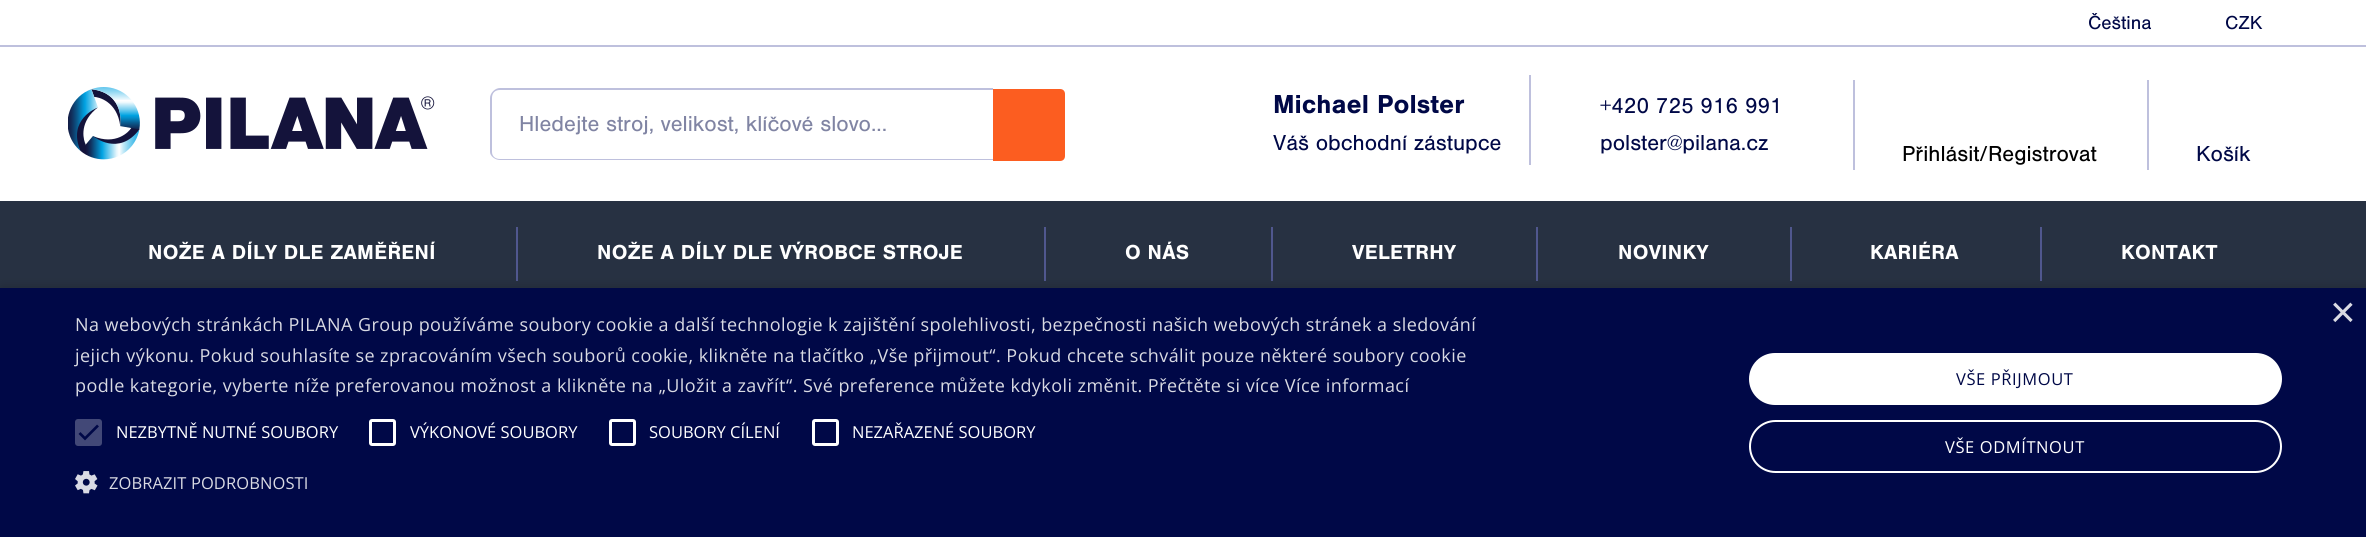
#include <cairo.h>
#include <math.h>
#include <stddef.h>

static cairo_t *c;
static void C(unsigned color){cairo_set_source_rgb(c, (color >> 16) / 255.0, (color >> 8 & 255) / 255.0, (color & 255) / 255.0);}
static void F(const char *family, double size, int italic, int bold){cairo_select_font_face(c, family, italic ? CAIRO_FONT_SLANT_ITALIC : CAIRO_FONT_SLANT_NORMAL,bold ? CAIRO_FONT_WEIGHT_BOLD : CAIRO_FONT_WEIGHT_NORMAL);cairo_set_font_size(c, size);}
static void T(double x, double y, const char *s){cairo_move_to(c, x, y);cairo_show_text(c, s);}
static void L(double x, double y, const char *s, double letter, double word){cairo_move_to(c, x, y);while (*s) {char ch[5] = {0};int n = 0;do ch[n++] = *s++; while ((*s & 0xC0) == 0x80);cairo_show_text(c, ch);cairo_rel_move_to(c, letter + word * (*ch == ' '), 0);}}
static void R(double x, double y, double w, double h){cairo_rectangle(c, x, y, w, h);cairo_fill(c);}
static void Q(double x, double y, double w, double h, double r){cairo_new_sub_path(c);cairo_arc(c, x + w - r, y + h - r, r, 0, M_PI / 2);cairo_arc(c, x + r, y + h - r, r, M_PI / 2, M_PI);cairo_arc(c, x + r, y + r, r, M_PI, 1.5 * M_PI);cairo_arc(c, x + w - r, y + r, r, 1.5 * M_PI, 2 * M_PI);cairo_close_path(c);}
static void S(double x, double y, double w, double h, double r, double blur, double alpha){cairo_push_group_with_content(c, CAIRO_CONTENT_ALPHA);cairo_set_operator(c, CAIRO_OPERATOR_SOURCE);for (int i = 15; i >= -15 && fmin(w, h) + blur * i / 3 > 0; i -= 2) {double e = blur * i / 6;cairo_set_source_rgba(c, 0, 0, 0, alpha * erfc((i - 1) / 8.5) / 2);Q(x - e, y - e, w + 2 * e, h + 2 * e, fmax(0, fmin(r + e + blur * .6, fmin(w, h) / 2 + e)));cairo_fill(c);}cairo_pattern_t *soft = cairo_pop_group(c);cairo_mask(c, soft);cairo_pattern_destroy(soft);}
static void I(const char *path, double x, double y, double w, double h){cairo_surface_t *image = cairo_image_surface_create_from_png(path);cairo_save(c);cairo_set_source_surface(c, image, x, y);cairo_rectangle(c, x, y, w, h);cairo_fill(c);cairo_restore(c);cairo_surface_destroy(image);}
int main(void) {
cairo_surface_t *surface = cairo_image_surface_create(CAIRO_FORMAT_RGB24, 2366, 537);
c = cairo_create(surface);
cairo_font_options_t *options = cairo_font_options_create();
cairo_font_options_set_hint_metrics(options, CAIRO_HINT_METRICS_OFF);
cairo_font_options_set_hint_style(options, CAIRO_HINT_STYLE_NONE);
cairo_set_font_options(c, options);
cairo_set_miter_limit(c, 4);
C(0xffffff);
cairo_paint(c);
F("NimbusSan",19.5,0,0);
C(0x000847);
T(2088,29,"Čeština");
T(2225,29,"CZK");
C(0x273142);
R(0,201,2366,87);
F("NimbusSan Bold",21,0,1);
C(0xffffff);
L(148,259,"NOŽE A DÍLY DLE ZAMĚŘENÍ",.3,0);
C(0x50578e);
R(516,227,2,54);
C(0xffffff);
L(597,259,"NOŽE A DÍLY DLE VÝROBCE STROJE",.3,0);
C(0x50578e);
R(1044,227,2,54);
C(0xffffff);
L(1125,259,"O NÁS",.3,0);
C(0x50578e);
R(1271,227,2,54);
C(0xffffff);
L(1352,259,"VELETRHY",.3,0);
C(0x50578e);
R(1536,227,2,54);
C(0xffffff);
L(1618,259,"NOVINKY",.3,0);
C(0x50578e);
R(1790,227,2,54);
C(0xffffff);
L(1870,259,"KARIÉRA",.3,0);
C(0x50578e);
R(2040,227,2,54);
C(0xffffff);
L(2121,259,"KONTAKT",.3,0);
C(0xbec0dd);
R(0,45,2366,2);
I("1.png",68,87,367,73);
cairo_set_fill_rule(c,CAIRO_FILL_RULE_EVEN_ODD);
cairo_new_path(c);
cairo_move_to(c,500,88);
cairo_line_to(c,993,88);
cairo_line_to(c,993,160);
cairo_line_to(c,500,160);
cairo_curve_to(c,495,160,490,156,490,152);
cairo_line_to(c,490,98);
cairo_curve_to(c,490,93,495,88,500,88);
cairo_close_path(c);
cairo_move_to(c,500,90);
cairo_line_to(c,993,90);
cairo_line_to(c,993,159);
cairo_line_to(c,500,159);
cairo_curve_to(c,495,159,492,156,492,152);
cairo_line_to(c,492,98);
cairo_curve_to(c,492,93,495,90,500,90);
cairo_close_path(c);
cairo_fill(c);
F("NimbusSan",22.5,0,0);
C(0x8084a3);
T(519,131,"Hledejte stroj, velikost, klíčové slovo...");
C(0xfc5d20);
cairo_new_path(c);
cairo_move_to(c,993,89);
cairo_line_to(c,1060,89);
cairo_curve_to(c,1063,89,1065,91,1065,94);
cairo_line_to(c,1065,156);
cairo_curve_to(c,1065,159,1063,161,1060,161);
cairo_line_to(c,993,161);
cairo_close_path(c);
cairo_fill(c);
F("NimbusSan Bold",27,0,1);
C(0x000847);
T(1273,113,"Michael Polster");
C(0xbec0dd);
R(1529,75,2,90);
F("NimbusSan",22.5,0,0);
C(0x000847);
T(1600,113,"+420 725 916 991");
T(1273,150,"Váš obchodní zástupce");
T(1600,150,"polster@pilana.cz");
C(0xbec0dd);
R(1853,80,2,90);
C(0x000000);
T(1902,161,"Přihlásit/Registrovat");
C(0xbec0dd);
R(2147,80,2,90);
C(0x000847);
T(2196,161,"Košík");
C(0x000000);
S(2,291,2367,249,0,6,.35);
C(0x000847);
R(0,288,2366,249);
F("Liberation Sans",44,0,0);
C(0xd9dae3);
T(2330,327,"×");
F("Open Sans",18,0,0);
L(75,331,"Na webových stránkách PILANA Group používáme soubory cookie a další technologie k zajištění spolehlivosti, bezpečnosti našich webových stránek a sledování",.45,0);
L(75,362,"jejich výkonu. Pokud souhlasíte se zpracováním všech souborů cookie, klikněte na tlačítko „Vše přijmout“. Pokud chcete schválit pouze některé soubory cookie",.45,0);
L(75,392,"podle kategorie, vyberte níže preferovanou možnost a klikněte na „Uložit a zavřít“. Své preference můžete kdykoli změnit. Přečtěte si více Více informací",.45,0);
C(0x424877);
Q(75,419,27,27,3);
cairo_fill(c);
cairo_new_path(c);
cairo_move_to(c,79.5,433);
cairo_line_to(c,85,438.5);
cairo_line_to(c,98,425.5);
C(0x000847);
cairo_set_line_width(c,2.7);
cairo_stroke(c);
F("Open Sans",16.5,0,0);
C(0xffffff);
T(116,438,"NEZBYTNĚ NUTNÉ SOUBORY");
Q(370.5,420.5,24,24,1.5);
cairo_set_line_width(c,3);
cairo_stroke(c);
T(410,438,"VÝKONOVÉ SOUBORY");
Q(610.5,420.5,24,24,1.5);
cairo_stroke(c);
T(649,438,"SOUBORY CÍLENÍ");
Q(813.5,420.5,24,24,1.5);
cairo_stroke(c);
T(852,438,"NEZAŘAZENÉ SOUBORY");
I("2.png",75,471,23,23);
C(0xd9dae3);
L(109,489,"ZOBRAZIT PODROBNOSTI",.1,0);
C(0xffffff);
Q(1749,353,533,52,26);
cairo_fill(c);
C(0x000847);
L(1956,385,"VŠE PŘIJMOUT",.6,0);
Q(1750,421,531,51,25.5);
C(0xffffff);
cairo_set_line_width(c,2);
cairo_stroke(c);
L(1945,453,"VŠE ODMÍTNOUT",.6,0);
cairo_surface_write_to_png(surface, "o.png");
cairo_font_options_destroy(options);
cairo_destroy(c);
cairo_surface_destroy(surface);
return 0;
}
